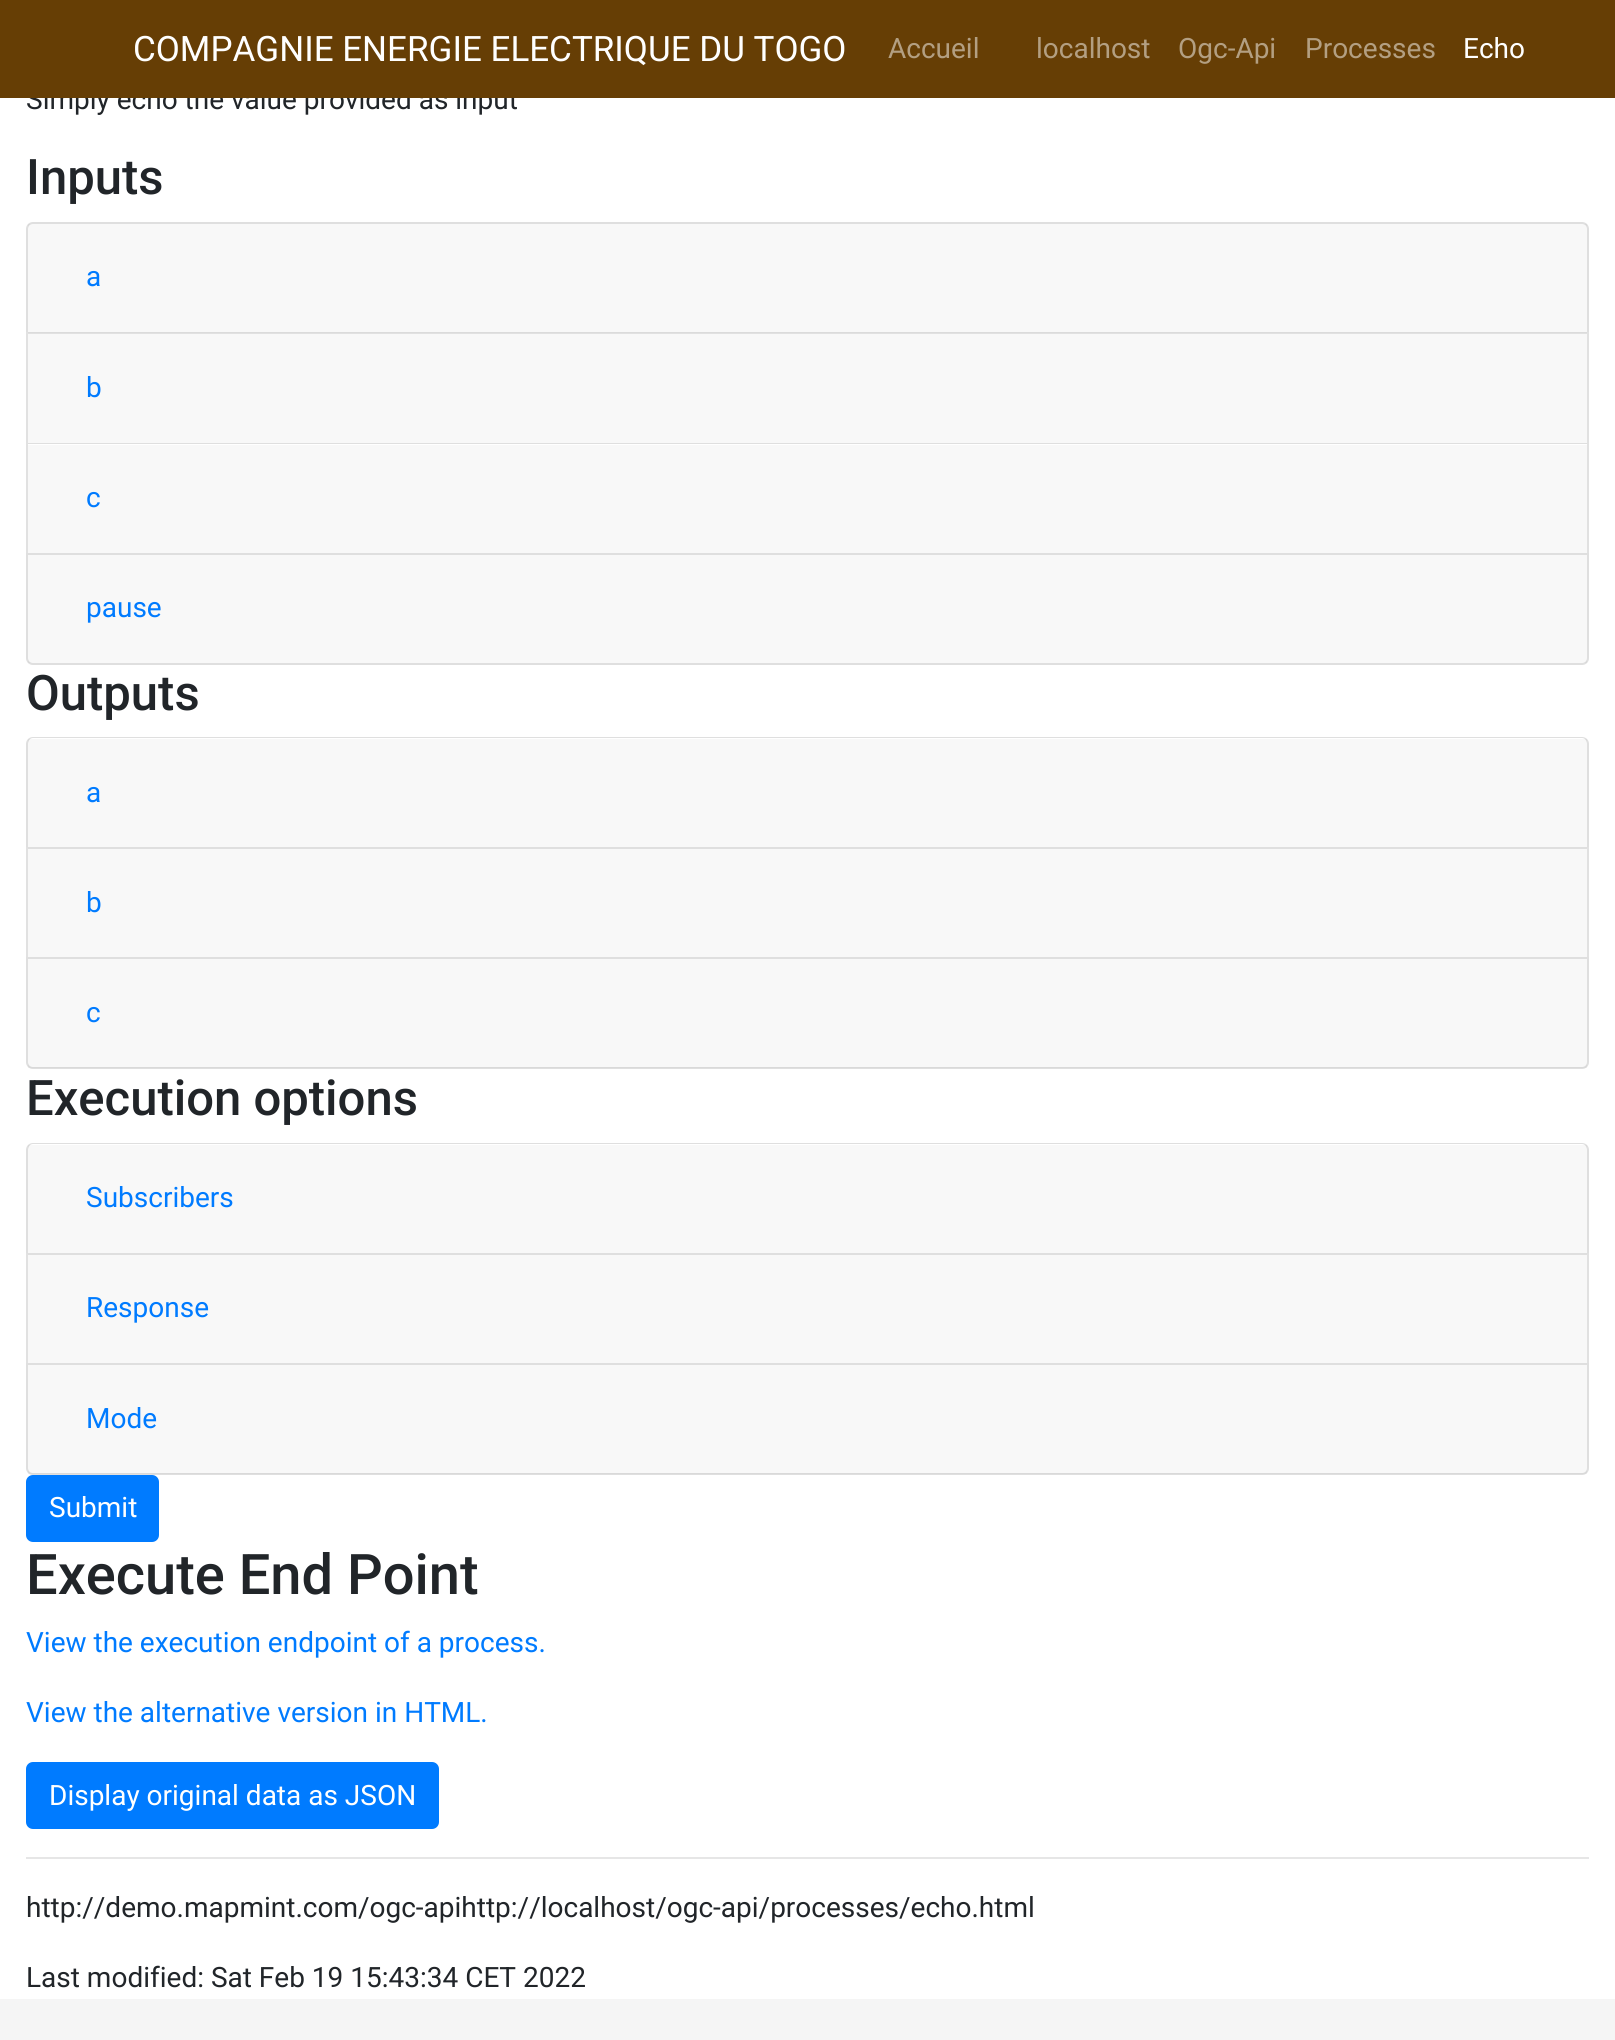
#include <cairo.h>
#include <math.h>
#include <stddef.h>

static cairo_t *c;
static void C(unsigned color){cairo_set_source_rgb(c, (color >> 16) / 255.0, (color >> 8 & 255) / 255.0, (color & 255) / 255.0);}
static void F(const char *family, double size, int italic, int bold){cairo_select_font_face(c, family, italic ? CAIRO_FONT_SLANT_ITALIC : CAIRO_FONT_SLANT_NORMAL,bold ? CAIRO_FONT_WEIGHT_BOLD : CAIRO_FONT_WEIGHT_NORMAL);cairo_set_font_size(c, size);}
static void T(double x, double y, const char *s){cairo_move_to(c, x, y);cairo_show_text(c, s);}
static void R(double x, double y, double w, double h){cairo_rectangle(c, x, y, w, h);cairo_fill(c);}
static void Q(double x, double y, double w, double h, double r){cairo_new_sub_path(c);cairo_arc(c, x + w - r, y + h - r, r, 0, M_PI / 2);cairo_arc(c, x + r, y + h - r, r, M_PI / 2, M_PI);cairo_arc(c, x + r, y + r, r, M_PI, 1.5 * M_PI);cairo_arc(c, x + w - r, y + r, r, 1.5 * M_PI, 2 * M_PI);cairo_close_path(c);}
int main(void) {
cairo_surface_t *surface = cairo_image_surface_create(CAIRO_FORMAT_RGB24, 1615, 2040);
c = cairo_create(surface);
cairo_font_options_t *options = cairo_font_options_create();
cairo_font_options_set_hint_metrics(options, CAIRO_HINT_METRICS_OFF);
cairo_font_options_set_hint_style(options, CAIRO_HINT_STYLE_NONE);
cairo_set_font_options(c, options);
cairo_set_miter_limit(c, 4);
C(0xffffff);
cairo_paint(c);
F("Roboto",28,0,0);
C(0x212529);
T(26,109,"Simply echo the value provided as input");
C(0x663e05);
R(0,0,1615,98);
F("Roboto",35,0,0);
C(0xffffff);
T(133,61,"COMPAGNIE ENERGIE ELECTRIQUE DU TOGO");
F("Roboto",28,0,0);
C(0xb39f82);
T(888,58,"Accueil");
T(1036,58,"localhost");
T(1178,58,"Ogc-Api");
T(1305,58,"Processes");
C(0xffffff);
T(1463,58,"Echo");
F("Roboto Medium",49,0,0);
C(0x212529);
T(26,194,"Inputs");
C(0xdfdfdf);
cairo_set_fill_rule(c,CAIRO_FILL_RULE_EVEN_ODD);
cairo_new_path(c);
cairo_move_to(c,33,222);
cairo_line_to(c,1582,222);
cairo_curve_to(c,1586,222,1589,225,1589,229);
cairo_line_to(c,1589,332);
cairo_line_to(c,26,332);
cairo_line_to(c,26,229);
cairo_curve_to(c,26,225,29,222,33,222);
cairo_close_path(c);
cairo_move_to(c,33,224);
cairo_line_to(c,1582,224);
cairo_curve_to(c,1585,224,1587,226,1587,229);
cairo_line_to(c,1587,332);
cairo_line_to(c,28,332);
cairo_line_to(c,28,229);
cairo_curve_to(c,28,226,30,224,33,224);
cairo_close_path(c);
cairo_fill(c);
cairo_set_source_rgba(c,0,0,0,0.03);
R(28,224,1559,109);
F("Roboto",28,0,0);
C(0x007bff);
T(86,286,"a");
cairo_set_source_rgba(c,0,0,0,0.12);
cairo_set_fill_rule(c,CAIRO_FILL_RULE_WINDING);
cairo_new_path(c);
cairo_move_to(c,26,332);
cairo_line_to(c,1589,332);
cairo_line_to(c,1587,334);
cairo_line_to(c,28,334);
cairo_close_path(c);
cairo_fill(c);
cairo_new_path(c);
cairo_move_to(c,1589,332);
cairo_line_to(c,1589,443);
cairo_line_to(c,1587,443);
cairo_line_to(c,1587,334);
cairo_close_path(c);
cairo_fill(c);
cairo_new_path(c);
cairo_move_to(c,26,443);
cairo_line_to(c,26,332);
cairo_line_to(c,28,334);
cairo_line_to(c,28,443);
cairo_close_path(c);
cairo_fill(c);
C(0xf8f8f8);
R(28,334,1559,109);
C(0x007bff);
T(86,397,"b");
C(0xdfdfdf);
cairo_new_path(c);
cairo_move_to(c,26,443);
cairo_line_to(c,1589,443);
cairo_line_to(c,1587,444);
cairo_line_to(c,28,444);
cairo_close_path(c);
cairo_fill(c);
cairo_set_source_rgba(c,0,0,0,0.12);
cairo_new_path(c);
cairo_move_to(c,1589,443);
cairo_line_to(c,1589,553);
cairo_line_to(c,1587,553);
cairo_line_to(c,1587,444);
cairo_close_path(c);
cairo_fill(c);
cairo_new_path(c);
cairo_move_to(c,26,553);
cairo_line_to(c,26,443);
cairo_line_to(c,28,444);
cairo_line_to(c,28,553);
cairo_close_path(c);
cairo_fill(c);
C(0xf8f8f8);
R(28,445,1559,108);
C(0x007bff);
T(86,507,"c");
cairo_new_path(c);
cairo_move_to(c,27,554);
cairo_line_to(c,1588,554);
cairo_line_to(c,1588,658);
cairo_curve_to(c,1588,661.5,1585.5,664,1582,664);
cairo_line_to(c,33,664);
cairo_curve_to(c,29.5,664,27,661.5,27,658);
cairo_close_path(c);
C(0xdfdfdf);
cairo_stroke(c);
cairo_set_source_rgba(c,0,0,0,0.03);
R(28,555,1559,108);
C(0x007bff);
T(86,617,"pause");
F("Roboto Medium",49,0,0);
C(0x212529);
T(26,710,"Outputs");
C(0xdfdfdf);
cairo_set_fill_rule(c,CAIRO_FILL_RULE_EVEN_ODD);
cairo_new_path(c);
cairo_move_to(c,33,737);
cairo_line_to(c,1582,737);
cairo_curve_to(c,1586,737,1589,740,1589,744);
cairo_line_to(c,1589,847);
cairo_line_to(c,26,847);
cairo_line_to(c,26,744);
cairo_curve_to(c,26,740,29,737,33,737);
cairo_close_path(c);
cairo_move_to(c,33,738);
cairo_line_to(c,1582,738);
cairo_curve_to(c,1585,738,1587,741,1587,744);
cairo_line_to(c,1587,847);
cairo_line_to(c,28,847);
cairo_line_to(c,28,744);
cairo_curve_to(c,28,741,30,738,33,738);
cairo_close_path(c);
cairo_fill(c);
cairo_set_source_rgba(c,0,0,0,0.03);
R(28,739,1559,108);
F("Roboto",28,0,0);
C(0x007bff);
T(86,802,"a");
C(0xdfdfdf);
cairo_set_fill_rule(c,CAIRO_FILL_RULE_WINDING);
cairo_new_path(c);
cairo_move_to(c,26,847);
cairo_line_to(c,1589,847);
cairo_line_to(c,1587,849);
cairo_line_to(c,28,849);
cairo_close_path(c);
cairo_fill(c);
cairo_set_source_rgba(c,0,0,0,0.12);
cairo_new_path(c);
cairo_move_to(c,1589,847);
cairo_line_to(c,1589,957);
cairo_line_to(c,1587,957);
cairo_line_to(c,1587,849);
cairo_close_path(c);
cairo_fill(c);
cairo_new_path(c);
cairo_move_to(c,26,957);
cairo_line_to(c,26,847);
cairo_line_to(c,28,849);
cairo_line_to(c,28,957);
cairo_close_path(c);
cairo_fill(c);
C(0xf8f8f8);
R(28,849,1559,108);
C(0x007bff);
T(86,912,"b");
cairo_new_path(c);
cairo_move_to(c,27,958);
cairo_line_to(c,1588,958);
cairo_line_to(c,1588,1062);
cairo_curve_to(c,1588,1065.5,1585.5,1068,1582,1068);
cairo_line_to(c,33,1068);
cairo_curve_to(c,29.5,1068,27,1065.5,27,1062);
cairo_close_path(c);
C(0xdfdfdf);
cairo_stroke(c);
cairo_set_source_rgba(c,0,0,0,0.03);
R(28,959,1559,109);
C(0x007bff);
T(86,1022,"c");
F("Roboto Medium",49,0,0);
C(0x212529);
T(26,1115,"Execution options");
C(0xdfdfdf);
cairo_set_fill_rule(c,CAIRO_FILL_RULE_EVEN_ODD);
cairo_new_path(c);
cairo_move_to(c,33,1143);
cairo_line_to(c,1582,1143);
cairo_curve_to(c,1586,1143,1589,1146,1589,1150);
cairo_line_to(c,1589,1253);
cairo_line_to(c,26,1253);
cairo_line_to(c,26,1150);
cairo_curve_to(c,26,1146,29,1143,33,1143);
cairo_close_path(c);
cairo_move_to(c,33,1144);
cairo_line_to(c,1582,1144);
cairo_curve_to(c,1585,1144,1587,1147,1587,1150);
cairo_line_to(c,1587,1253);
cairo_line_to(c,28,1253);
cairo_line_to(c,28,1150);
cairo_curve_to(c,28,1147,30,1144,33,1144);
cairo_close_path(c);
cairo_fill(c);
cairo_set_source_rgba(c,0,0,0,0.03);
R(28,1145,1559,108);
F("Roboto",28,0,0);
C(0x007bff);
T(86,1207,"Subscribers");
C(0xdfdfdf);
cairo_set_fill_rule(c,CAIRO_FILL_RULE_WINDING);
cairo_new_path(c);
cairo_move_to(c,26,1253);
cairo_line_to(c,1589,1253);
cairo_line_to(c,1587,1255);
cairo_line_to(c,28,1255);
cairo_close_path(c);
cairo_fill(c);
cairo_set_source_rgba(c,0,0,0,0.12);
cairo_new_path(c);
cairo_move_to(c,1589,1253);
cairo_line_to(c,1589,1363);
cairo_line_to(c,1587,1363);
cairo_line_to(c,1587,1255);
cairo_close_path(c);
cairo_fill(c);
cairo_new_path(c);
cairo_move_to(c,26,1363);
cairo_line_to(c,26,1253);
cairo_line_to(c,28,1255);
cairo_line_to(c,28,1363);
cairo_close_path(c);
cairo_fill(c);
C(0xf8f8f8);
R(28,1255,1559,108);
C(0x007bff);
T(86,1317,"Response");
cairo_new_path(c);
cairo_move_to(c,27,1364);
cairo_line_to(c,1588,1364);
cairo_line_to(c,1588,1468);
cairo_curve_to(c,1588,1471.5,1585.5,1474,1582,1474);
cairo_line_to(c,33,1474);
cairo_curve_to(c,29.5,1474,27,1471.5,27,1468);
cairo_close_path(c);
C(0xdfdfdf);
cairo_stroke(c);
cairo_set_source_rgba(c,0,0,0,0.03);
R(28,1365,1559,109);
C(0x007bff);
T(86,1428,"Mode");
Q(27,1476,131,65,6);
cairo_fill_preserve(c);
cairo_stroke(c);
C(0xffffff);
T(49,1517,"Submit");
F("Roboto Medium",56,0,0);
C(0x212529);
T(26,1594,"Execute End Point");
F("Roboto",28,0,0);
C(0x007bff);
T(26,1652,"View the execution endpoint of a process.");
T(26,1722,"View the alternative version in HTML.");
Q(27,1763,411,65,6);
cairo_fill_preserve(c);
cairo_stroke(c);
C(0xffffff);
T(49,1805,"Display original data as JSON");
C(0xe6e6e6);
R(26,1857,1563,2);
C(0x212529);
T(26,1917,"http://demo.mapmint.com/ogc-apihttp://localhost/ogc-api/processes/echo.html");
T(26,1987,"Last modified: Sat Feb 19 15:43:34 CET 2022");
C(0xf5f5f5);
R(0,1999,1615,41);
cairo_surface_write_to_png(surface, "o.png");
cairo_font_options_destroy(options);
cairo_destroy(c);
cairo_surface_destroy(surface);
return 0;
}
